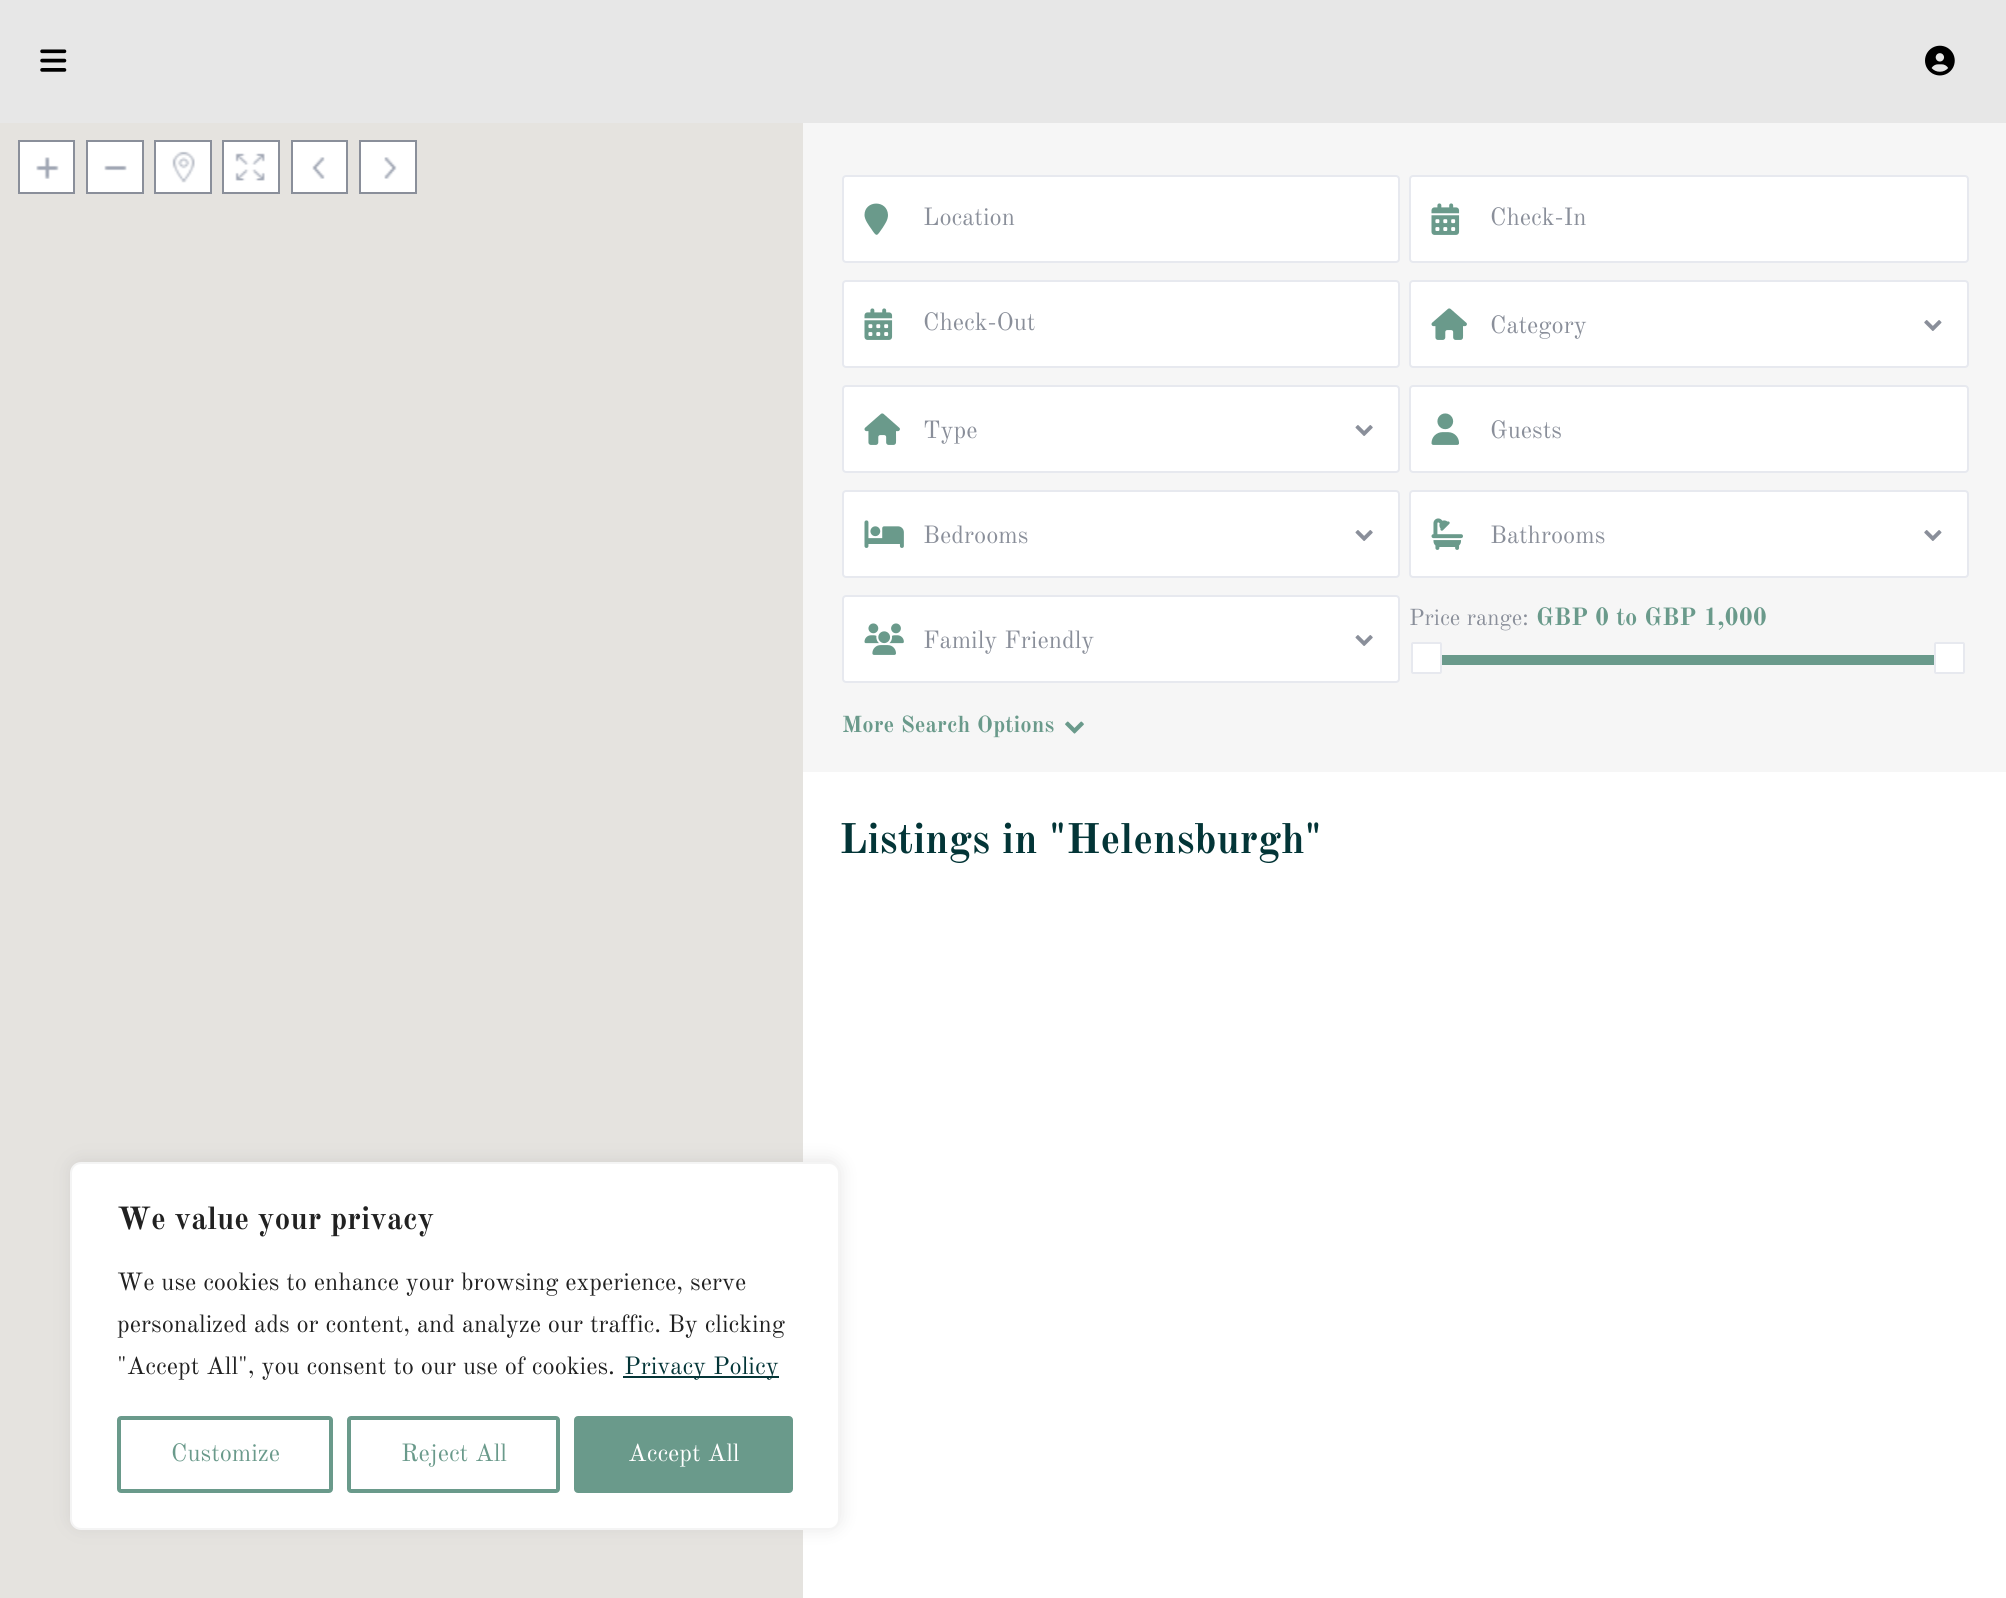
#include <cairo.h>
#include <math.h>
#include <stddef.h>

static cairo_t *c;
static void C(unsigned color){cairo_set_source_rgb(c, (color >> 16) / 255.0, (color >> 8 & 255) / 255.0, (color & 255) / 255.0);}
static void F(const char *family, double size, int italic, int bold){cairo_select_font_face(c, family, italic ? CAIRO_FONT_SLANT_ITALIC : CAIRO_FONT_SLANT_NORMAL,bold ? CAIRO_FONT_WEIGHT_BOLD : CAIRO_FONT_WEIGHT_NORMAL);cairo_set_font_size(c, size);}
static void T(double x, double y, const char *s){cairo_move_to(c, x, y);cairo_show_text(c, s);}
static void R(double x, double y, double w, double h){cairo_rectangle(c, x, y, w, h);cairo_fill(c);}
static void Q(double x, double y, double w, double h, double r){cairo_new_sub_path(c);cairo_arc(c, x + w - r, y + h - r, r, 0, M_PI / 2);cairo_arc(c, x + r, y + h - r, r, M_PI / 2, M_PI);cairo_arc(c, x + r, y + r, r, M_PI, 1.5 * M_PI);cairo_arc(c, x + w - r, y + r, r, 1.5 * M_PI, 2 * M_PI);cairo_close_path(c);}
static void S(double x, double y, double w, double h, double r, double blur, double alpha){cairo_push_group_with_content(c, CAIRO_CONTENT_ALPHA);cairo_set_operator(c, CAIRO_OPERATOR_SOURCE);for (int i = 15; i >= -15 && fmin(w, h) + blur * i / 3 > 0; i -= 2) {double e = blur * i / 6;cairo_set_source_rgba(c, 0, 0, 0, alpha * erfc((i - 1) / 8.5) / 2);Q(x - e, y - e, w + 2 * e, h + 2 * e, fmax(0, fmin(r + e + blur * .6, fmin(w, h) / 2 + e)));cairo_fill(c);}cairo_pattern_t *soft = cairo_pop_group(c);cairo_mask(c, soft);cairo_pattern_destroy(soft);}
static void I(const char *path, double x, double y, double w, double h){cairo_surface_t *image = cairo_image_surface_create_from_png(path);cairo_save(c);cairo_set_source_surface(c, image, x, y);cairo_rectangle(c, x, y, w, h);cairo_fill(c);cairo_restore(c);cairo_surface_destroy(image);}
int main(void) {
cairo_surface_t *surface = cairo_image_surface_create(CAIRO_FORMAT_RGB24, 2006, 1598);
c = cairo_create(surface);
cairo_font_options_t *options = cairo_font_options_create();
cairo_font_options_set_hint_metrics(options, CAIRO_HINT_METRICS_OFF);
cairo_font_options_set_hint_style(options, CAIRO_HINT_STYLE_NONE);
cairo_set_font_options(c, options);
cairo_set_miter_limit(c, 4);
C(0xffffff);
cairo_paint(c);
C(0xe7e7e7);
R(0,0,2006,123);
I("1.png",40,49,27,23);
I("2.png",1925,45,30,31);
C(0xe5e3df);
R(0,123,803,1475);
C(0xffffff);
R(20,142,53,50);
I("3.png",36,157,23,22);
cairo_rectangle(c,19,141,55,52);
C(0x8a8f9a);
cairo_stroke(c);
C(0xffffff);
R(88,142,54,50);
I("4.png",104,165,23,6);
cairo_rectangle(c,87,141,56,52);
C(0x8a8f9a);
cairo_stroke(c);
C(0xffffff);
R(156,142,54,50);
I("5.png",172,151,23,32);
cairo_rectangle(c,155,141,56,52);
C(0x8a8f9a);
cairo_stroke(c);
C(0xffffff);
R(224,142,54,50);
I("6.png",235,153,30,28);
cairo_rectangle(c,223,141,56,52);
C(0x8a8f9a);
cairo_stroke(c);
C(0xffffff);
R(293,142,53,50);
I("7.png",312,157,13,22);
cairo_rectangle(c,292,141,55,52);
C(0x8a8f9a);
cairo_stroke(c);
C(0xffffff);
R(361,142,54,50);
I("8.png",384,157,13,22);
cairo_rectangle(c,360,141,56,52);
C(0x8a8f9a);
cairo_stroke(c);
C(0xf6f6f6);
R(803,123,1203,649);
C(0xffffff);
Q(843,176,556,86,3);
cairo_fill_preserve(c);
C(0xe7e9ef);
cairo_stroke(c);
C(0x6a9a8b);
cairo_new_path(c);
cairo_move_to(c,888,215);
cairo_curve_to(c,888,220,885,224,882.5,228);
cairo_curve_to(c,876.5,236.5,877,237.5,871,228.5);
cairo_curve_to(c,868.5,225,864.5,219.5,864.5,215);
cairo_curve_to(c,864.5,200,887.5,199.5,888,215);
cairo_close_path(c);
cairo_fill(c);
F("Old Standard TT",24.5,0,0);
C(0x8a8f9a);
T(923,225,"Location");
C(0xffffff);
Q(1410,176,558,86,3);
cairo_fill_preserve(c);
C(0xe7e9ef);
cairo_stroke(c);
I("9.png",1431,203,29,32);
C(0x8a8f9a);
T(1490,225,"Check-In");
C(0xffffff);
Q(843,281,556,86,3);
cairo_fill_preserve(c);
C(0xe7e9ef);
cairo_stroke(c);
I("9.png",864,308,29,32);
C(0x8a8f9a);
T(923,330,"Check-Out");
C(0xffffff);
Q(1410,281,558,86,3);
cairo_fill_preserve(c);
C(0xe7e9ef);
cairo_stroke(c);
I("10.png",1431,308,36,32);
C(0x8a8f9a);
T(1490,333,"Category");
I("11.png",1924,320,18,11);
C(0xffffff);
Q(843,386,556,86,3);
cairo_fill_preserve(c);
C(0xe7e9ef);
cairo_stroke(c);
I("10.png",864,413,36,32);
C(0x8a8f9a);
T(923,438,"Type");
I("12.png",1355,425,18,11);
C(0xffffff);
Q(1410,386,558,86,3);
cairo_fill_preserve(c);
C(0xe7e9ef);
cairo_stroke(c);
I("13.png",1431,413,28,32);
C(0x8a8f9a);
T(1490,438,"Guests");
C(0xffffff);
Q(843,491,556,86,3);
cairo_fill_preserve(c);
C(0xe7e9ef);
cairo_stroke(c);
I("14.png",864,520,40,28);
C(0x8a8f9a);
T(923,543,"Bedrooms");
I("12.png",1355,530,18,11);
C(0xffffff);
Q(1410,491,558,86,3);
cairo_fill_preserve(c);
C(0xe7e9ef);
cairo_stroke(c);
I("15.png",1431,518,32,32);
C(0x8a8f9a);
T(1490,543,"Bathrooms");
I("11.png",1924,530,18,11);
F("Old Standard TT",22.75,0,0);
T(1409,625,"Price range:");
F("Old Standard TT",24.5,0,1);
C(0x6a9a8b);
T(1536,625,"GBP 0 to GBP 1,000");
C(0xffffff);
Q(1412,643,29,30,1);
cairo_fill_preserve(c);
C(0xe7e9ef);
cairo_stroke(c);
C(0x6a9a8b);
R(1442,655,492,10);
C(0xffffff);
Q(1935,643,29,30,1);
cairo_fill_preserve(c);
C(0xe7e9ef);
cairo_stroke(c);
C(0xffffff);
Q(843,596,556,86,3);
cairo_fill_preserve(c);
C(0xe7e9ef);
cairo_stroke(c);
I("16.png",864,623,40,32);
F("Old Standard TT",24.5,0,0);
C(0x8a8f9a);
T(923,648,"Family Friendly");
I("12.png",1355,635,18,11);
F("Old Standard TT",22.75,0,1);
C(0x6a9a8b);
T(842,732,"More Search Options");
I("17.png",1065,721,19,13);
F("Old Standard TT",42,0,1);
C(0x033537);
T(839,853,"Listings in \"Helensburgh\"");
C(0xacabab);
S(70,1160,770,368,11,9,.3);
C(0xffffff);
Q(71,1163,768,366,10);
cairo_fill_preserve(c);
C(0xf4f4f4);
cairo_stroke(c);
F("Old Standard TT",31.5,0,1);
C(0x212121);
T(117,1229,"We value your privacy");
F("Old Standard TT",24.5,0,0);
T(117,1290,"We use cookies to enhance your browsing experience, serve");
T(117,1332,"personalized ads or content, and analyze our traffic. By clicking");
T(117,1374,"\"Accept All\", you consent to our use of cookies.");
C(0x053537);
R(623,1376,156,2);
C(0x033537);
T(624,1374,"Privacy Policy");
Q(119,1418,212,73,2);
C(0x6a9a8b);
cairo_set_line_width(c,4);
cairo_stroke(c);
T(171,1461,"Customize");
Q(349,1418,209,73,2);
cairo_stroke(c);
T(401,1461,"Reject All");
Q(576,1418,215,73,2);
cairo_fill_preserve(c);
cairo_stroke(c);
C(0xffffff);
T(628,1461,"Accept All");
cairo_surface_write_to_png(surface, "o.png");
cairo_font_options_destroy(options);
cairo_destroy(c);
cairo_surface_destroy(surface);
return 0;
}
